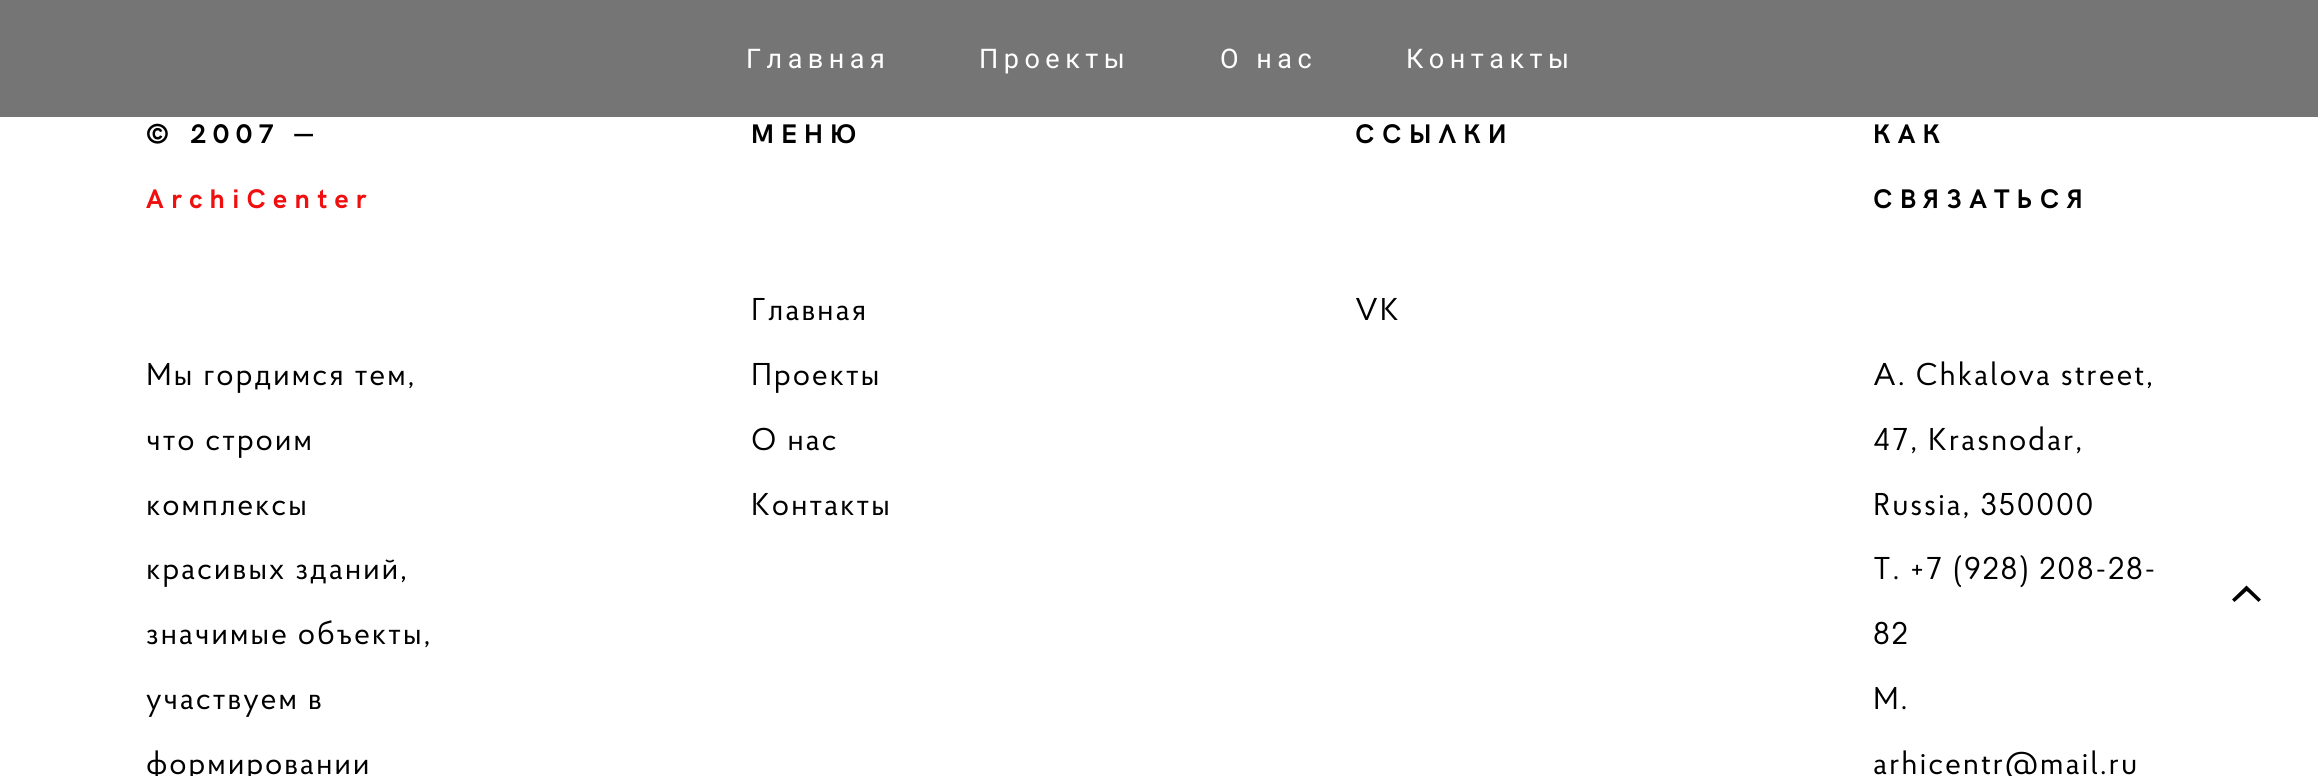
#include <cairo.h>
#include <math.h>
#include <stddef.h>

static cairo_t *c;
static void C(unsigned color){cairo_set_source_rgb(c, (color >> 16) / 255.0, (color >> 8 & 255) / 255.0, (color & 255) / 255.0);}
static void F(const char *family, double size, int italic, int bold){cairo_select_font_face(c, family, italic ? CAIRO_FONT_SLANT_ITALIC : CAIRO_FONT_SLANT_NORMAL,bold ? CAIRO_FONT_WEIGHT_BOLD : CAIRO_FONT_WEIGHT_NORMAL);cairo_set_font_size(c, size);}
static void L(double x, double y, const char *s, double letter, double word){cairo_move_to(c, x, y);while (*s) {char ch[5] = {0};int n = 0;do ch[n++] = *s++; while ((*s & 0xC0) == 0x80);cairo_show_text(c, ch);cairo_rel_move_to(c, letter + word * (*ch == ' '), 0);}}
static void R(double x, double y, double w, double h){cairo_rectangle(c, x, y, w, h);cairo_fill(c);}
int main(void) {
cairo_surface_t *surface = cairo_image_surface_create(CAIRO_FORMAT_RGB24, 2318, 776);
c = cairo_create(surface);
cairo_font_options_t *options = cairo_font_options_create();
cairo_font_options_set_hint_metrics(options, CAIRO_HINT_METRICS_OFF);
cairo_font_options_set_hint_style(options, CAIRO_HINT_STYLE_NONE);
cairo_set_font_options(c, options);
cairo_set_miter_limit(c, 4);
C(0xffffff);
cairo_paint(c);
C(0x757575);
R(0,0,2318,117);
F("Roboto",27,0,0);
C(0xffffff);
L(746,68,"Главная",5.5,0);
L(979,68,"Проекты",5.5,0);
L(1220,68,"О нас",5.5,0);
L(1406,68,"Контакты",5.5,0);
F("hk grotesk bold",27,0,1);
C(0x000000);
L(146,143,"© 2007 —",7.25,0);
C(0xf00e0e);
L(146,208,"ArchiCenter",7.25,0);
F("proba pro",31.5,0,0);
C(0x000000);
L(146,385,"Мы гордимся тем,",1.75,0);
L(146,450,"что строим",1.75,0);
L(146,515,"комплексы",1.75,0);
L(146,579,"красивых зданий,",1.75,0);
L(146,644,"значимые объекты,",1.75,0);
L(146,709,"участвуем в",1.75,0);
L(146,774,"формировании",1.75,0);
F("hk grotesk bold",27,0,1);
L(751,143,"МЕНЮ",7.25,0);
F("proba pro",31.5,0,0);
L(751,320,"Главная",1.75,0);
L(751,385,"Проекты",1.75,0);
L(751,450,"О нас",1.75,0);
L(751,515,"Контакты",1.75,0);
F("hk grotesk bold",27,0,1);
L(1355,143,"ССЫЛКИ",7.25,0);
F("proba pro",31.5,0,0);
L(1355,320,"VK",1.75,0);
F("hk grotesk bold",27,0,1);
L(1873,143,"КАК",7.25,0);
L(1873,208,"СВЯЗАТЬСЯ",7.25,0);
F("proba pro",31.5,0,0);
L(1873,385,"A. Chkalova street,",1.75,0);
L(1873,450,"47, Krasnodar,",1.75,0);
L(1873,515,"Russia, 350000",1.75,0);
L(1873,579,"Т. +7 (928) 208-28-",1.75,0);
L(1873,644,"82",1.75,0);
L(1873,709,"M.",1.75,0);
L(1873,774,"arhicentr@mail.ru",1.75,0);
cairo_set_fill_rule(c,CAIRO_FILL_RULE_EVEN_ODD);
cairo_new_path(c);
cairo_move_to(c,2261,599.5);
cairo_line_to(c,2258.5,602);
cairo_line_to(c,2248.5,592.5);
cairo_line_to(c,2246.5,591);
cairo_line_to(c,2245,592.5);
cairo_line_to(c,2234.5,602);
cairo_line_to(c,2232,599.5);
cairo_line_to(c,2246.5,585.5);
cairo_close_path(c);
cairo_fill(c);
cairo_surface_write_to_png(surface, "o.png");
cairo_font_options_destroy(options);
cairo_destroy(c);
cairo_surface_destroy(surface);
return 0;
}
